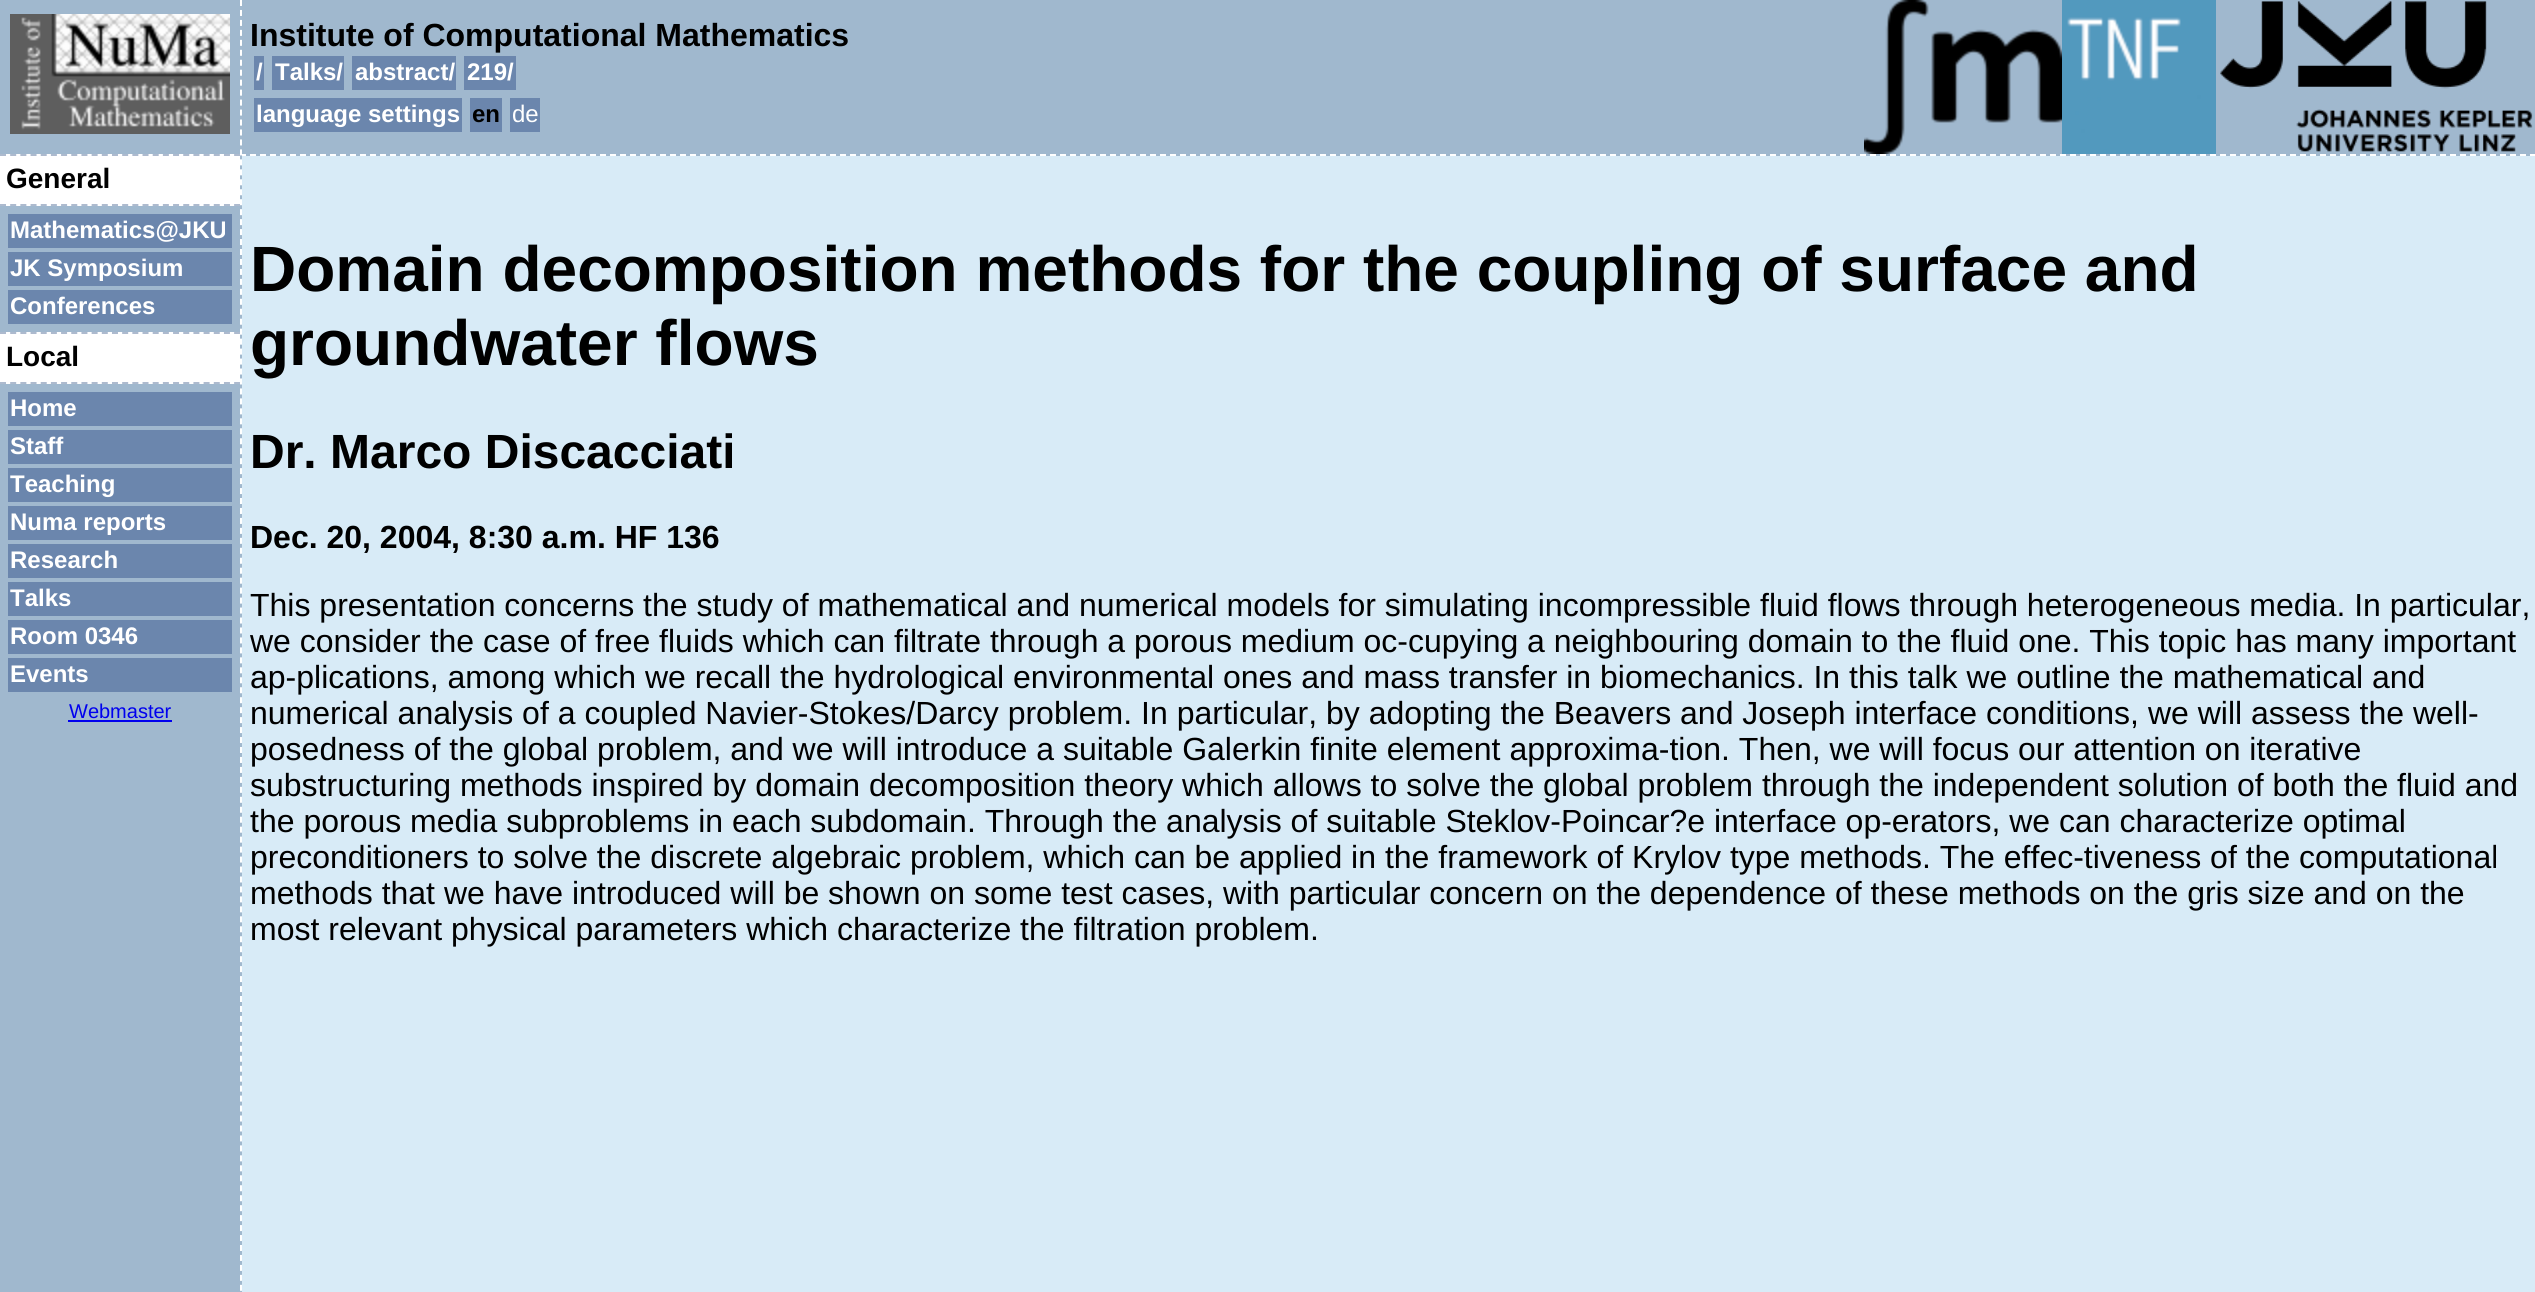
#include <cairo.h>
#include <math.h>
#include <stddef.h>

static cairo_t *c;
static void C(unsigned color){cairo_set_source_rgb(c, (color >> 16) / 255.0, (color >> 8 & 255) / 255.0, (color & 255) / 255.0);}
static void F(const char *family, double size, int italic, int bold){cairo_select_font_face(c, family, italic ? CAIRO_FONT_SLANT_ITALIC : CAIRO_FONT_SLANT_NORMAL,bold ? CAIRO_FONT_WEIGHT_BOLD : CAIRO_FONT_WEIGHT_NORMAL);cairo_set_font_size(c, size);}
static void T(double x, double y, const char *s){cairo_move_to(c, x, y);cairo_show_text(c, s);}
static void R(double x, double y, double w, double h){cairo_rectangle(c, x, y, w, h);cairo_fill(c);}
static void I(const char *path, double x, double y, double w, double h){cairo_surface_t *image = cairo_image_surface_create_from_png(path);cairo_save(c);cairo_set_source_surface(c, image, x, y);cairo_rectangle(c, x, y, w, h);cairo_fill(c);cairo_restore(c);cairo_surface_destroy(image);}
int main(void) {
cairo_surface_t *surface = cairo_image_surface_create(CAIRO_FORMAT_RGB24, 2535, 1292);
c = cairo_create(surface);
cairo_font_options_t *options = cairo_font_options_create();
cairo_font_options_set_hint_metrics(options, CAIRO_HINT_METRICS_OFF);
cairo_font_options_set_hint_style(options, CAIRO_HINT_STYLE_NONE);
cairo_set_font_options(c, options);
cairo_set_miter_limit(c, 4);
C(0xd8ebf7);
cairo_paint(c);
C(0xa0b8ce);
R(242,0,2293,156);
cairo_new_path(c);
cairo_move_to(c,240,155);
cairo_line_to(c,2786,155);
C(0xffffff);
cairo_set_dash(c,(double[]){6,4},2,0);
cairo_stroke(c);
F("Liberation Sans",32,0,1);
C(0x000000);
T(250,46,"Institute of Computational Mathematics");
C(0x6b86ad);
R(254,56,10,34);
F("Liberation Sans",24,0,1);
C(0xffffff);
T(256,80,"/");
C(0x6b86ad);
R(272,56,72,34);
C(0xffffff);
T(275,80,"Talks/");
C(0x6b86ad);
R(352,56,104,34);
C(0xffffff);
T(355,80,"abstract/");
C(0x6b86ad);
R(464,56,52,34);
C(0xffffff);
T(467,80,"219/");
C(0x6b86ad);
R(254,98,208,34);
C(0xffffff);
T(256,122,"language settings");
C(0x6b86ad);
R(470,98,32,34);
C(0x000000);
T(472,122,"en");
C(0x6b86ad);
R(510,98,30,34);
F("Liberation Sans",24,0,0);
C(0xffffff);
T(512,122,"de");
I("1.png",1864,0,198,154);
I("2.png",2062,0,154,154);
I("3.png",2220,1,313,151);
C(0xa0b8ce);
R(0,0,242,1292);
cairo_new_path(c);
cairo_move_to(c,241,0);
cairo_line_to(c,241,1292);
C(0xffffff);
cairo_set_dash(c,(double[]){6,3.96},2,0);
cairo_stroke(c);
I("4.png",10,14,220,120);
R(0,154,240,52);
cairo_new_path(c);
cairo_move_to(c,0,155);
cairo_line_to(c,240,155);
C(0xadbace);
cairo_set_dash(c,(double[]){6,4.18},2,0);
cairo_stroke(c);
cairo_new_path(c);
cairo_move_to(c,0,205);
cairo_line_to(c,240,205);
cairo_stroke(c);
F("Liberation Sans",28,0,1);
C(0x000000);
T(6,188,"General");
C(0x6b86ad);
R(8,214,224,34);
F("Liberation Sans",24,0,1);
C(0xffffff);
T(10,238,"Mathematics@JKU");
C(0x6b86ad);
R(8,252,224,34);
C(0xffffff);
T(10,276,"JK Symposium");
C(0x6b86ad);
R(8,290,224,34);
C(0xffffff);
T(10,314,"Conferences");
R(0,332,240,52);
cairo_new_path(c);
cairo_move_to(c,0,333);
cairo_line_to(c,240,333);
C(0xadbace);
cairo_stroke(c);
cairo_new_path(c);
cairo_move_to(c,0,383);
cairo_line_to(c,240,383);
cairo_stroke(c);
F("Liberation Sans",28,0,1);
C(0x000000);
T(6,366,"Local");
C(0x6b86ad);
R(8,392,224,34);
F("Liberation Sans",24,0,1);
C(0xffffff);
T(10,416,"Home");
C(0x6b86ad);
R(8,430,224,34);
C(0xffffff);
T(10,454,"Staff");
C(0x6b86ad);
R(8,468,224,34);
C(0xffffff);
T(10,492,"Teaching");
C(0x6b86ad);
R(8,506,224,34);
C(0xffffff);
T(10,530,"Numa reports");
C(0x6b86ad);
R(8,544,224,34);
C(0xffffff);
T(10,568,"Research");
C(0x6b86ad);
R(8,582,224,34);
C(0xffffff);
T(10,606,"Talks");
C(0x6b86ad);
R(8,620,224,34);
C(0xffffff);
T(10,644,"Room 0346");
C(0x6b86ad);
R(8,658,224,34);
C(0xffffff);
T(10,682,"Events");
F("Liberation Sans",20,0,0);
C(0x0000ee);
T(69,718,"Webmaster");
R(68,720,104,2);
F("Liberation Sans",64,0,1);
C(0x000000);
T(250,291,"Domain decomposition methods for the coupling of surface and");
T(250,365,"groundwater flows");
F("Liberation Sans",48,0,1);
T(250,468,"Dr. Marco Discacciati");
F("Liberation Sans",32,0,1);
T(250,548,"Dec. 20, 2004, 8:30 a.m. HF 136");
F("Liberation Sans",32,0,0);
T(250,616,"This presentation concerns the study of mathematical and numerical models for simulating incompressible fluid flows through heterogeneous media. In particular,");
T(250,652,"we consider the case of free fluids which can filtrate through a porous medium oc-cupying a neighbouring domain to the fluid one. This topic has many important");
T(250,688,"ap-plications, among which we recall the hydrological environmental ones and mass transfer in biomechanics. In this talk we outline the mathematical and");
T(250,724,"numerical analysis of a coupled Navier-Stokes/Darcy problem. In particular, by adopting the Beavers and Joseph interface conditions, we will assess the well-");
T(250,760,"posedness of the global problem, and we will introduce a suitable Galerkin finite element approxima-tion. Then, we will focus our attention on iterative");
T(250,796,"substructuring methods inspired by domain decomposition theory which allows to solve the global problem through the independent solution of both the fluid and");
T(250,832,"the porous media subproblems in each subdomain. Through the analysis of suitable Steklov-Poincar?e interface op-erators, we can characterize optimal");
T(250,868,"preconditioners to solve the discrete algebraic problem, which can be applied in the framework of Krylov type methods. The effec-tiveness of the computational");
T(250,904,"methods that we have introduced will be shown on some test cases, with particular concern on the dependence of these methods on the gris size and on the");
T(250,940,"most relevant physical parameters which characterize the filtration problem.");
cairo_surface_write_to_png(surface, "o.png");
cairo_font_options_destroy(options);
cairo_destroy(c);
cairo_surface_destroy(surface);
return 0;
}
